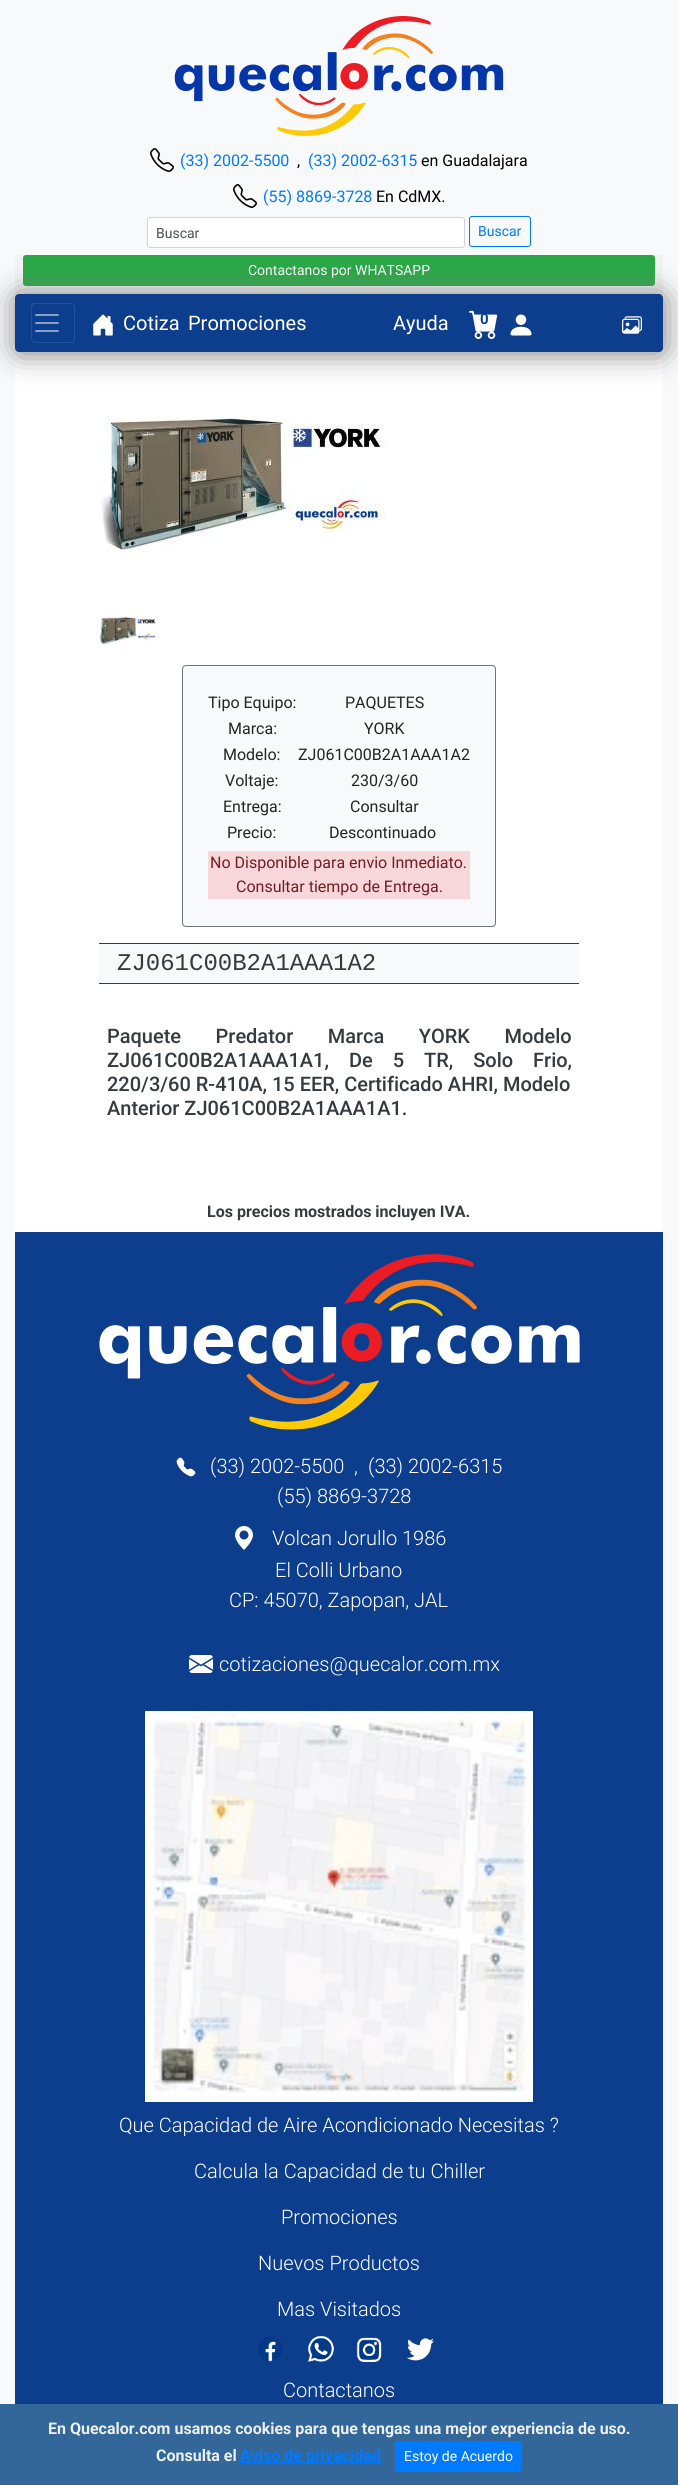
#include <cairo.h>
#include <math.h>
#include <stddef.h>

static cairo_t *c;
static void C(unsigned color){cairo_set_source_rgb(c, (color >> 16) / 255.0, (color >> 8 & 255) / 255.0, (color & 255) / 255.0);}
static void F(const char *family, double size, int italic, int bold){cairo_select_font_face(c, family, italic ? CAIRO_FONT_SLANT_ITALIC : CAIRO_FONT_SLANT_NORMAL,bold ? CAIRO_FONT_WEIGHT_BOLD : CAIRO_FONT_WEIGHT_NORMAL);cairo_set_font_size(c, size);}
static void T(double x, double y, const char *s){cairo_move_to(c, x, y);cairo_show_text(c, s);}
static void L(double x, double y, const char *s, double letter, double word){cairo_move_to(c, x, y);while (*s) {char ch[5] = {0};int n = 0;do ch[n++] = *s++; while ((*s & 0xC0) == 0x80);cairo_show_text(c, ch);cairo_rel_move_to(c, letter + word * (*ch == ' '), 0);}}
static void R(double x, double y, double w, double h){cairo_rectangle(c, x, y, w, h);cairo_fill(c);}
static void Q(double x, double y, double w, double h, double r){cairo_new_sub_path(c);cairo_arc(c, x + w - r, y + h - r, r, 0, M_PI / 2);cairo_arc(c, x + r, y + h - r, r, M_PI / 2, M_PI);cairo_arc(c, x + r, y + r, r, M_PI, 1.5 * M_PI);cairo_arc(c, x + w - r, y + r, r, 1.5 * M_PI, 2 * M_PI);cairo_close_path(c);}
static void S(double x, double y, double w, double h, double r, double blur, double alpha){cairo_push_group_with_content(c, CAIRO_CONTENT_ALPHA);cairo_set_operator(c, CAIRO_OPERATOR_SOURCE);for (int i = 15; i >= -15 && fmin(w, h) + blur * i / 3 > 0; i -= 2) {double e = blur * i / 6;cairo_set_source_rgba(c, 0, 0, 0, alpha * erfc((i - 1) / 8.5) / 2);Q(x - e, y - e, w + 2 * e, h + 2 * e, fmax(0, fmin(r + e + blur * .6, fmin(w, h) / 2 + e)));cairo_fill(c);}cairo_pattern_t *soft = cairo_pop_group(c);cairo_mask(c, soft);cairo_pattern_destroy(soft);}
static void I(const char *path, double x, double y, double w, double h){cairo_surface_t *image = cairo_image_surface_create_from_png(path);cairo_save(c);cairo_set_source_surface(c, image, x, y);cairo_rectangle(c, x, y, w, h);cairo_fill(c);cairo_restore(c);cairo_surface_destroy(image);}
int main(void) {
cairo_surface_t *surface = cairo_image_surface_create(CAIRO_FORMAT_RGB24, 678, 2485);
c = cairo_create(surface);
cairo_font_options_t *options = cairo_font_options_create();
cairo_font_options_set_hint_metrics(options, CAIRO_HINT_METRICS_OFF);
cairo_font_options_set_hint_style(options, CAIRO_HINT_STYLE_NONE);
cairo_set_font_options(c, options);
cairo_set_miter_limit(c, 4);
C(0xf8f9fa);
cairo_paint(c);
I("1.png",174,16,330,120);
I("2.png",150,148,24,24);
F("Roboto",16,0,0);
C(0x007bff);
T(180,166,"(33) 2002-5500");
C(0x000000);
T(297,166,",");
C(0x007bff);
T(308,166,"(33) 2002-6315");
C(0x000000);
T(421,166,"en Guadalajara");
I("2.png",233,184,24,24);
C(0x007bff);
T(263,202,"(55) 8869-3728");
C(0x000000);
T(376,202,"En CdMX.");
C(0xffffff);
Q(147.5,217.5,317,30,2.5);
cairo_fill_preserve(c);
C(0xced4da);
cairo_set_line_width(c,1);
cairo_stroke(c);
F("Roboto",14,0,0);
C(0x495057);
T(156,238,"Buscar");
Q(469.5,216.5,61,30,2.5);
C(0x007bff);
cairo_stroke(c);
T(478,236,"Buscar");
C(0xf3f3f3);
R(15,255,648,39);
C(0x28a745);
Q(23.5,255.5,631,30,2.5);
cairo_fill_preserve(c);
cairo_stroke(c);
C(0xffffff);
T(248,275,"Contactanos por WHATSAPP");
R(15,360,648,872);
C(0x808080);
S(16,295,648,58,4,15,1);
C(0x0d3e8d);
Q(15,294,648,58,4);
cairo_fill(c);
Q(31.5,303.5,43,39,3.5);
C(0x255198);
cairo_stroke(c);
I("3.png",35,314,24,18);
I("4.png",93,314,20,22);
F("Roboto",20,0,0);
C(0xffffff);
T(123,330,"Cotiza");
T(188,330,"Promociones");
T(393,330,"Ayuda");
I("5.png",469,310,29,29);
F("Roboto",15,0,1);
C(0x0d3e8d);
T(480,324,"0");
I("6.png",510,314,22,22);
I("7.png",622,316,20,18);
I("8.png",99,413,288,139);
I("9.png",99,617,57,28);
C(0xf8f9fa);
Q(182.5,665.5,313,261,3.5);
cairo_fill_preserve(c);
C(0x6c757d);
cairo_stroke(c);
F("Roboto",16,0,0);
C(0x212529);
T(208,708,"Tipo Equipo:");
T(345,708,"PAQUETES");
T(228,734,"Marca:");
T(364,734,"YORK");
T(223,760,"Modelo:");
T(298,760,"ZJ061C00B2A1AAA1A2");
T(225,786,"Voltaje:");
T(351,786,"230/3/60");
T(223,812,"Entrega:");
T(350,812,"Consultar");
T(227,838,"Precio:");
T(329,838,"Descontinuado");
C(0xf8d7da);
R(208,851,262,48);
C(0x721c24);
T(210,868,"No Disponible para envio Inmediato.");
T(236,892,"Consultar tiempo de Entrega.");
C(0xf8f9fa);
R(99,944,480,39);
C(0x343a40);
R(99,943,480,1);
R(99,983,480,1);
F("Liberation Mono",24,0,0);
T(117,970,"ZJ061C00B2A1AAA1A2");
F("Roboto Medium",20,0,0);
L(107,1043,"Paquete Predator Marca YORK Modelo",0,29.5);
L(107,1067,"ZJ061C00B2A1AAA1A1, De 5 TR, Solo Frio,",0,15);
T(107,1091,"220/3/60 R-410A, 15 EER, Certificado AHRI, Modelo");
T(107,1115,"Anterior ZJ061C00B2A1AAA1A1.");
F("Roboto",16,0,1);
T(207,1217,"Los precios mostrados incluyen IVA.");
C(0x0d3e8d);
R(15,1232,648,1172);
I("10.png",99,1254,481,176);
I("11.png",176,1457,20,20);
F("Roboto Light",20,0,0);
C(0xffffff);
T(210,1473,"(33) 2002-5500");
T(354,1473,",");
T(368,1473,"(33) 2002-6315");
T(277,1503,"(55) 8869-3728");
I("12.png",235,1526,18,24);
T(272,1545,"Volcan Jorullo 1986");
T(275,1577,"El Colli Urbano");
T(229,1607,"CP: 45070, Zapopan, JAL");
I("13.png",189,1655,24,18);
T(219,1671,"cotizaciones@quecalor.com.mx");
I("14.png",145,1711,388,391);
T(119,2132,"Que Capacidad de Aire Acondicionado Necesitas ?");
T(194,2178,"Calcula la Capacidad de tu Chiller");
T(281,2224,"Promociones");
T(258,2270,"Nuevos Productos");
T(277,2316,"Mas Visitados");
I("15.png",258,2337,25,25);
I("16.png",307,2336,27,26);
I("17.png",356,2337,26,25);
I("18.png",407,2338,27,23);
T(283,2397,"Contactanos");
C(0x336699);
R(0,2404,678,81);
F("Roboto",16,0,1);
C(0xecf0f1);
T(48,2434,"En Quecalor.com usamos cookies para que tengas una mejor experiencia de uso.");
T(156,2461,"Consulta el");
C(0x007bff);
R(240,2462,141,1);
T(240,2461,"Aviso de privacidad");
Q(395.5,2441.5,126,30,2.5);
cairo_fill_preserve(c);
cairo_stroke(c);
F("Roboto",14,0,0);
C(0xffffff);
T(404,2461,"Estoy de Acuerdo");
cairo_surface_write_to_png(surface, "o.png");
cairo_font_options_destroy(options);
cairo_destroy(c);
cairo_surface_destroy(surface);
return 0;
}
